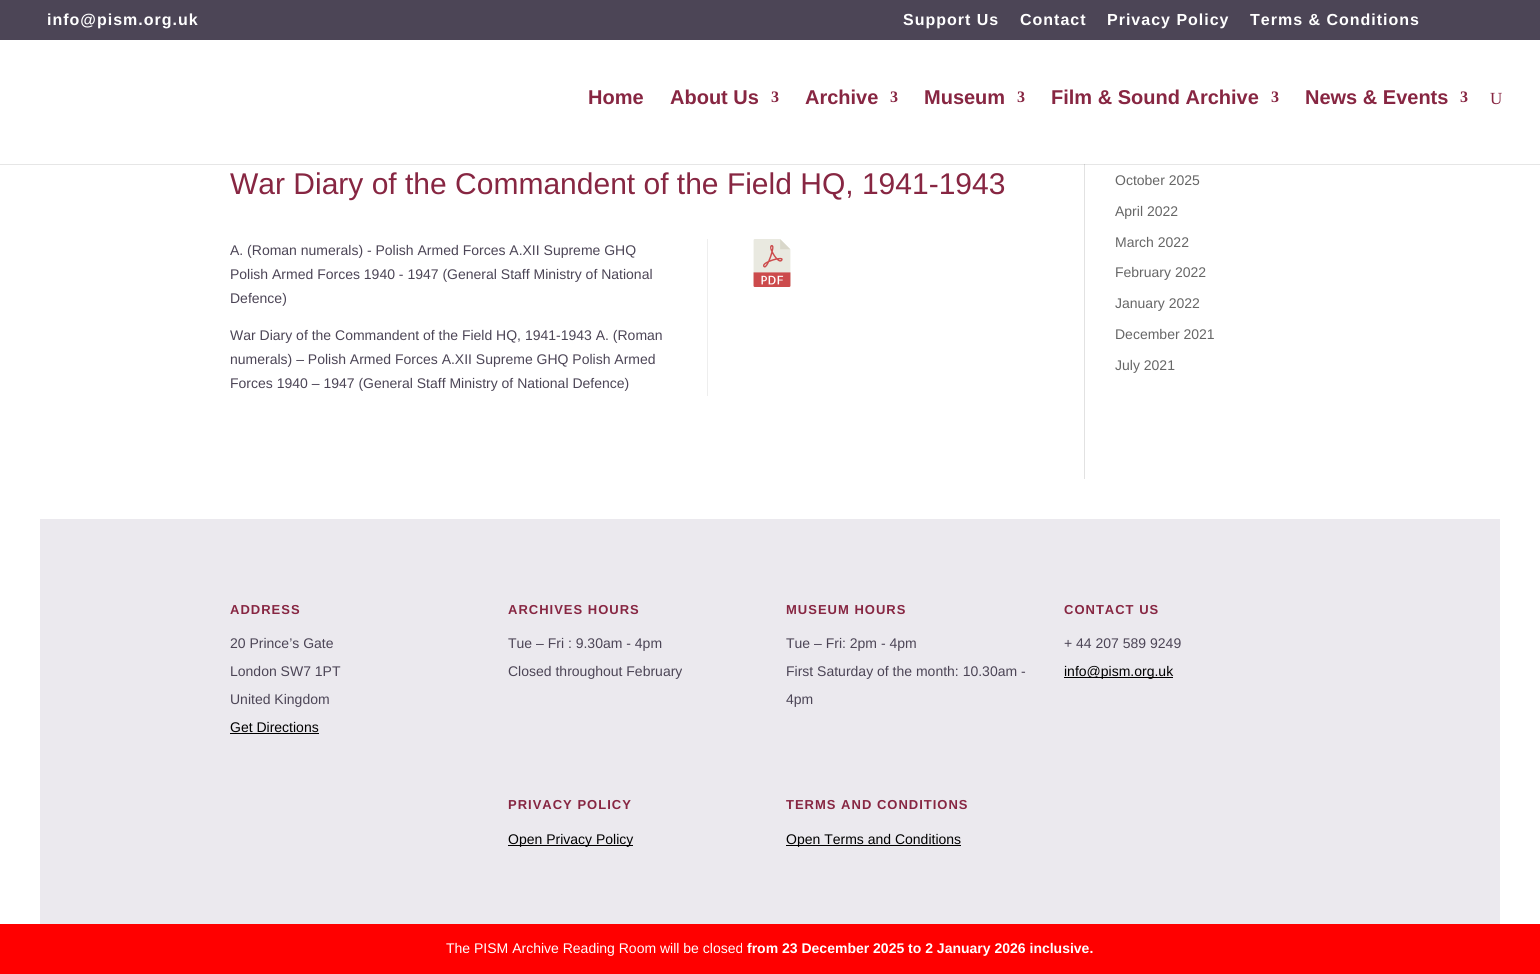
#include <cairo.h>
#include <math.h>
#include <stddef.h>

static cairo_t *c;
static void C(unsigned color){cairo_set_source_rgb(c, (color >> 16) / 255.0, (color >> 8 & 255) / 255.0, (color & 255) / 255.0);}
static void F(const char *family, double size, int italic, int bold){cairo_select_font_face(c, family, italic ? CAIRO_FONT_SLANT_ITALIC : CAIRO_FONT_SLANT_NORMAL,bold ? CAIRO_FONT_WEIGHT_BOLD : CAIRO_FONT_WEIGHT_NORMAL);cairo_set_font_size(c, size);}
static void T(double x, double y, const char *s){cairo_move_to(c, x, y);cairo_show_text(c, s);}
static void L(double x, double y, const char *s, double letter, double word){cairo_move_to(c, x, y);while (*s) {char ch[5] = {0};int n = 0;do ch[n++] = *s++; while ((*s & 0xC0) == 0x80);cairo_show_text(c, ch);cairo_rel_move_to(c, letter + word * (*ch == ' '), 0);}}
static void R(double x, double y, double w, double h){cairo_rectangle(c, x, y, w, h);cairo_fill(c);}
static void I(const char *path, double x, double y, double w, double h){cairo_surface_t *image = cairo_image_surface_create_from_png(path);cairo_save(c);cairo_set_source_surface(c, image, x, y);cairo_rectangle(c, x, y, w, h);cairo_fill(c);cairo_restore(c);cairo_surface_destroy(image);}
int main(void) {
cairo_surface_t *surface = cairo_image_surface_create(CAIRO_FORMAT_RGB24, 1540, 974);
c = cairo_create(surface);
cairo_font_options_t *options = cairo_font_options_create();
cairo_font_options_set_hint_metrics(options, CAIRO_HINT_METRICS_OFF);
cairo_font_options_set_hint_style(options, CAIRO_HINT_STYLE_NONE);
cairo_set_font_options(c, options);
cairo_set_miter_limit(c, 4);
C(0xffffff);
cairo_paint(c);
C(0xe6e6e6);
R(0,164,1540,1);
C(0x4c4556);
R(0,0,1540,40);
F("Liberation Sans",16,0,1);
C(0xffffff);
L(47,25,"info@pism.org.uk",1,0);
L(903,25,"Support Us",1,0);
L(1020,25,"Contact",1,0);
L(1107,25,"Privacy Policy",1,0);
L(1250,25,"Terms & Conditions",1,0);
F("Liberation Sans",20,0,1);
C(0x872642);
T(588,104,"Home");
T(670,104,"About Us");
F("Liberation Serif",16,0,1);
T(771,102,"3");
F("Liberation Sans",20,0,1);
T(805,104,"Archive");
F("Liberation Serif",16,0,1);
T(890,102,"3");
F("Liberation Sans",20,0,1);
T(924,104,"Museum");
F("Liberation Serif",16,0,1);
T(1017,102,"3");
F("Liberation Sans",20,0,1);
T(1051,104,"Film & Sound Archive");
F("Liberation Serif",16,0,1);
T(1271,102,"3");
F("Liberation Sans",20,0,1);
T(1305,104,"News & Events");
F("Liberation Serif",16,0,1);
T(1460,102,"3");
F("Liberation Serif",17,0,0);
T(1490,104,"U");
C(0xe2e2e2);
R(1084,165,1,314);
C(0xcbcbcb);
R(1084,164,1,1);
F("Liberation Sans",30,0,0);
C(0x872642);
T(230,194,"War Diary of the Commandent of the Field HQ, 1941-1943");
F("Liberation Sans",14,0,0);
C(0x4c4556);
T(230,255,"A. (Roman numerals) - Polish Armed Forces A.XII Supreme GHQ");
T(230,279,"Polish Armed Forces 1940 - 1947 (General Staff Ministry of National");
T(230,303,"Defence)");
T(230,340,"War Diary of the Commandent of the Field HQ, 1941-1943 A. (Roman");
T(230,364,"numerals) – Polish Armed Forces A.XII Supreme GHQ Polish Armed");
T(230,388,"Forces 1940 – 1947 (General Staff Ministry of National Defence)");
C(0xeeeeee);
R(707,239,1,157);
I("1.png",753,239,38,48);
C(0x666666);
T(1115,185,"October 2025");
T(1115,216,"April 2022");
T(1115,247,"March 2022");
T(1115,277,"February 2022");
T(1115,308,"January 2022");
T(1115,339,"December 2021");
T(1115,370,"July 2021");
C(0xebe9ee);
R(40,519,1460,405);
F("Liberation Sans",13,0,1);
C(0x872642);
L(230,614,"ADDRESS",1,0);
F("Liberation Sans",14,0,0);
C(0x4c4556);
T(230,648,"20 Prince’s Gate");
T(230,676,"London SW7 1PT");
T(230,704,"United Kingdom");
C(0x000000);
T(230,732,"Get Directions");
R(230,733,89,1);
F("Liberation Sans",13,0,1);
C(0x872642);
L(508,614,"ARCHIVES HOURS",1,0);
F("Liberation Sans",14,0,0);
C(0x4c4556);
T(508,648,"Tue – Fri : 9.30am - 4pm");
T(508,676,"Closed throughout February");
F("Liberation Sans",13,0,1);
C(0x872642);
L(786,614,"MUSEUM HOURS",1,0);
F("Liberation Sans",14,0,0);
C(0x4c4556);
T(786,648,"Tue – Fri: 2pm - 4pm");
T(786,676,"First Saturday of the month: 10.30am -");
T(786,704,"4pm");
F("Liberation Sans",13,0,1);
C(0x872642);
L(1064,614,"CONTACT US",1,0);
F("Liberation Sans",14,0,0);
C(0x4c4556);
T(1064,648,"+ 44 207 589 9249");
C(0x000000);
R(1064,677,109,1);
T(1064,676,"info@pism.org.uk");
F("Liberation Sans",13,0,1);
C(0x872642);
L(508,809,"PRIVACY POLICY",1,0);
C(0x000000);
R(508,845,125,1);
F("Liberation Sans",14,0,0);
T(508,844,"Open Privacy Policy");
F("Liberation Sans",13,0,1);
C(0x872642);
L(786,809,"TERMS AND CONDITIONS",1,0);
C(0x000000);
R(786,845,175,1);
F("Liberation Sans",14,0,0);
T(786,844,"Open Terms and Conditions");
C(0xff0000);
R(0,924,1540,50);
C(0xffffff);
T(446,953,"The PISM Archive Reading Room will be closed");
F("Liberation Sans",14,0,1);
T(747,953,"from 23 December 2025 to 2 January 2026 inclusive.");
cairo_surface_write_to_png(surface, "o.png");
cairo_font_options_destroy(options);
cairo_destroy(c);
cairo_surface_destroy(surface);
return 0;
}
